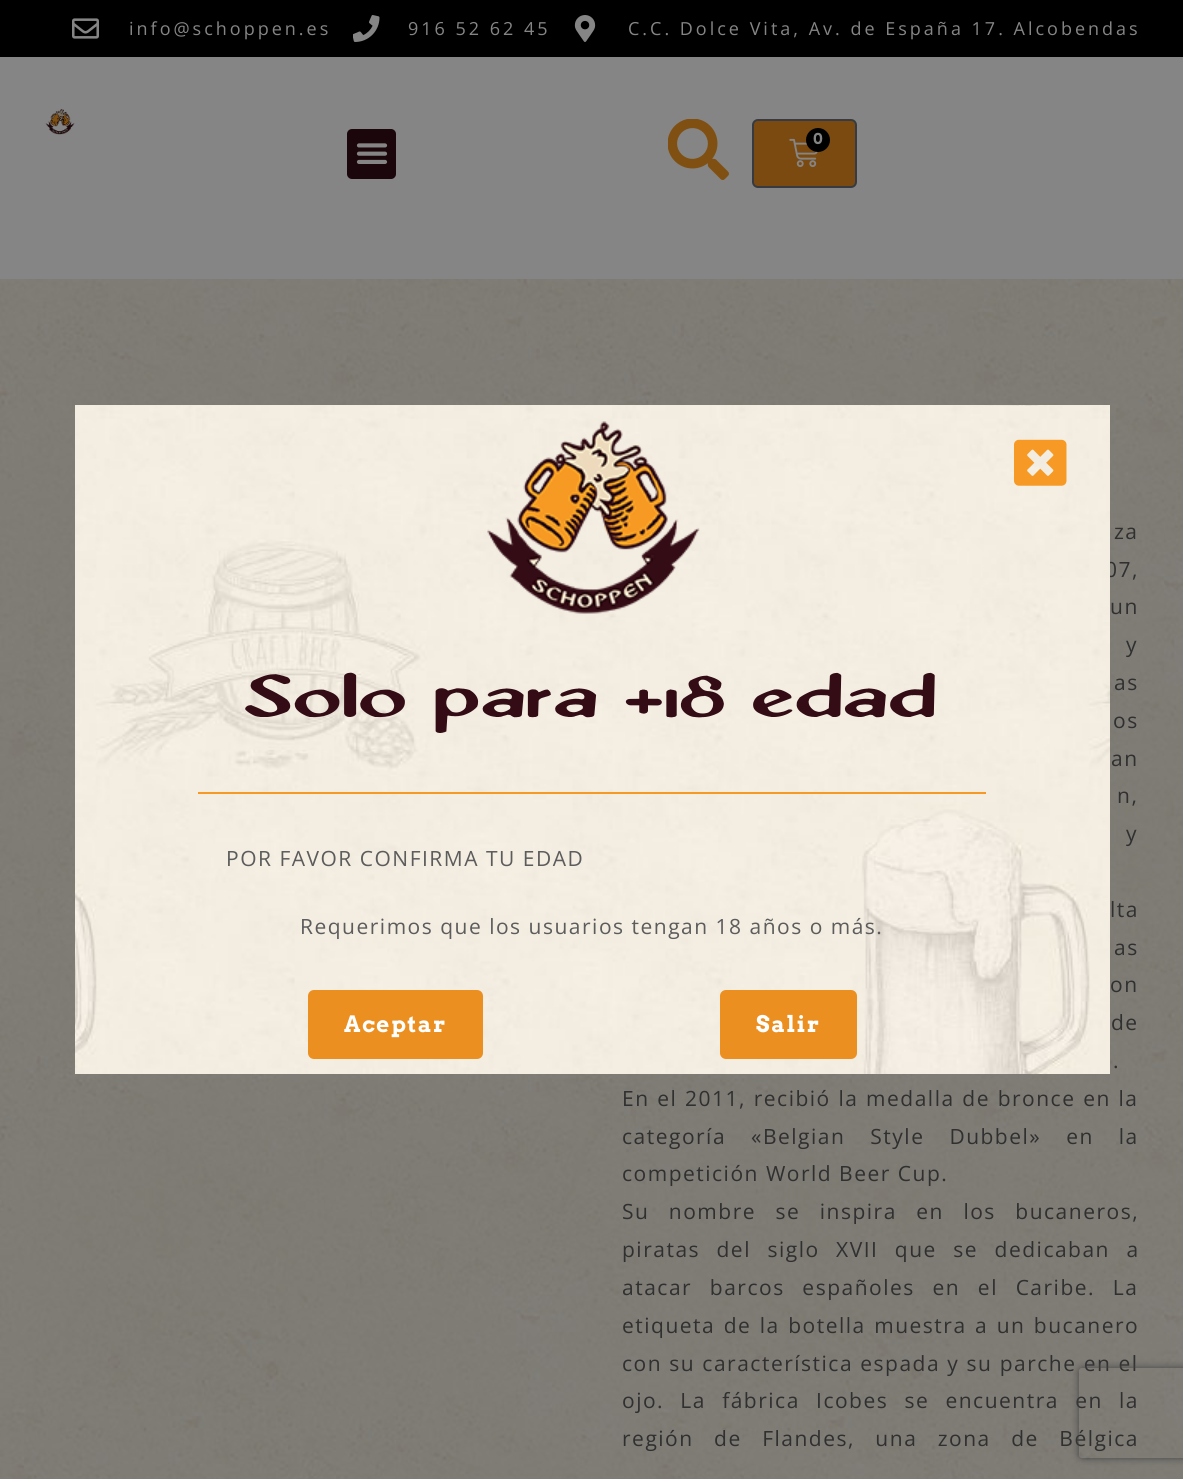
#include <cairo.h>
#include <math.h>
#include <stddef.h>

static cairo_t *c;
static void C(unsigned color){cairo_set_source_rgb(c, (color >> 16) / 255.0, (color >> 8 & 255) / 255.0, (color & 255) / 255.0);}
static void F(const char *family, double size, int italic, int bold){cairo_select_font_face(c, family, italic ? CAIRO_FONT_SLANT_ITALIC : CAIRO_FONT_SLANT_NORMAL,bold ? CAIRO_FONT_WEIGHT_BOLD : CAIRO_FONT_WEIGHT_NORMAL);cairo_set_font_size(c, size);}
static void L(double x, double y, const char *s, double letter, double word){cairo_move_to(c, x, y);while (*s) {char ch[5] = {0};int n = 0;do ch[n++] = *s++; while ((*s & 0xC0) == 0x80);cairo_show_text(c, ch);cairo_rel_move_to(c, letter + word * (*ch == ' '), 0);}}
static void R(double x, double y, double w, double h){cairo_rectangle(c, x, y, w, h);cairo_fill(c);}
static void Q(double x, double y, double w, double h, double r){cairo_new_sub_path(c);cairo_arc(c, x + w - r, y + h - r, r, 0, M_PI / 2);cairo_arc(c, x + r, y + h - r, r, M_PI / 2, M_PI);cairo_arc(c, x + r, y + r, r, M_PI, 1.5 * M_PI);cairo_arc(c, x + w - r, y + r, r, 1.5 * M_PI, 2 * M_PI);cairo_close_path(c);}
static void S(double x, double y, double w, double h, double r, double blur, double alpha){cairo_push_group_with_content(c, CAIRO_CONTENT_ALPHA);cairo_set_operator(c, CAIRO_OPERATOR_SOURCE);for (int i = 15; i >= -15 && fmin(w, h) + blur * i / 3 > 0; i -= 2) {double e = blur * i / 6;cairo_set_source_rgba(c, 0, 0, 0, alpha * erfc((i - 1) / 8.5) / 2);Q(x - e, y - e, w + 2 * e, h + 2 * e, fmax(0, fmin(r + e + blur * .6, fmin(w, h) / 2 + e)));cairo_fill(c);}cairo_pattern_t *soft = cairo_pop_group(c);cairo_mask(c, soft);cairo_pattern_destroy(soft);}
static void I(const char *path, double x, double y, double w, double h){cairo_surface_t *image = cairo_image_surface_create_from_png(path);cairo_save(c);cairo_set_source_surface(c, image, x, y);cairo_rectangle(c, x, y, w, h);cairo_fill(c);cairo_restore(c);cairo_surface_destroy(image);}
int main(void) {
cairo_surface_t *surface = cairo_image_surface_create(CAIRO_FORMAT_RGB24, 1183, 1479);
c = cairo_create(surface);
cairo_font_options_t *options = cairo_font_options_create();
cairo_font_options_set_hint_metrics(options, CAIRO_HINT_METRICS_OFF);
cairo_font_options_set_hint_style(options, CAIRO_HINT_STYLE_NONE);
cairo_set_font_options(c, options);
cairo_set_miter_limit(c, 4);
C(0xffffff);
cairo_paint(c);
I("1.png",0,279,1183,1200);
C(0x000000);
R(0,0,1183,57);
I("2.png",72,18,27,21);
F("Open Sans",18,0,0);
C(0x858585);
L(129,35,"info@schoppen.es",3,0);
I("3.png",353,15,27,27);
L(408,35,"916 52 62 45",3,0);
I("4.png",574,15,22,27);
L(628,35,"C.C. Dolce Vita, Av. de España 17. Alcobendas",3,0);
R(0,57,1183,222);
I("5.png",45,109,30,26);
C(0x1b060b);
Q(347,129,49,50,5);
cairo_fill(c);
I("6.png",356,143,32,21);
I("7.png",668,119,61,61);
C(0x7b4a11);
Q(753,120,103,67,5);
cairo_fill_preserve(c);
C(0x373b41);
cairo_stroke(c);
I("8.png",789,138,29,30);
C(0x000000);
cairo_arc(c,818,140,12,0,2 * M_PI);
cairo_fill(c);
F("Arvo",15,0,1);
C(0x858585);
L(813,144,"0",1.5,0);
F("Open Sans",21,0,0);
C(0x303030);
L(1114,539,"za",1.5,10);
L(1105,577,"07,",1.5,8);
L(1110,614,"un",1.5,1);
L(1126,652,"y",1.5,5);
L(1114,690,"as",1.5,8);
L(1113,728,"os",1.5,50);
L(1111,766,"an",1.5,34);
L(1117,803,"n,",1.5,10);
L(1126,841,"y",1.5,21);
L(1110,917,"lta",1.5,14);
L(1114,955,"as",1.5,10);
L(1110,992,"on",1.5,5);
L(1111,1030,"de",1.5,14);
L(1113,1068,".",1.5,0);
L(622,1106,"En el 2011, recibió la medalla de bronce en la",1.5,.75);
L(622,1144,"categoría «Belgian Style Dubbel» en la",1.5,18);
L(622,1181,"competición World Beer Cup.",1.5,0);
L(622,1219,"Su nombre se inspira en los bucaneros,",1.5,12.5);
L(622,1257,"piratas del siglo XVII que se dedicaban a",1.5,9.5);
L(622,1295,"atacar barcos españoles en el Caribe. La",1.5,10.75);
L(622,1333,"etiqueta de la botella muestra a un bucanero",1.5,1.5);
L(622,1371,"con su característica espada y su parche en el",1.5,.25);
L(622,1408,"ojo. La fábrica Icobes se encuentra en la",1.5,9.25);
L(622,1446,"región de Flandes, una zona de Bélgica",1.5,13.5);
I("9.png",75,405,1035,669);
I("10.png",487,421,213,193);
I("11.png",1014,439,53,47);
F("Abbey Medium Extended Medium",67.5,0,0);
C(0x340c15);
L(245,717,"Solo para +18 edad",1.5,0);
C(0xf79a25);
R(198,792,788,2);
F("Open Sans",21,0,0);
C(0x5c5c5c);
L(226,866,"POR FAVOR CONFIRMA TU EDAD",1.5,0);
L(300,934,"Requerimos que los usuarios tengan 18 años o más.",1.5,0);
C(0xec8f21);
Q(308,990,175,69,6);
cairo_fill(c);
F("Arvo",22.5,0,1);
C(0xffffff);
L(344,1032,"Aceptar",1.5,0);
C(0xec8f21);
Q(720,990,137,69,6);
cairo_fill(c);
C(0xffffff);
L(756,1032,"Salir",1.5,0);
cairo_save(c);
cairo_set_fill_rule(c,CAIRO_FILL_RULE_EVEN_ODD);
cairo_new_path(c);
cairo_move_to(c,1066,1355);
cairo_line_to(c,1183,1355);
cairo_line_to(c,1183,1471);
cairo_line_to(c,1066,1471);
cairo_close_path(c);
cairo_move_to(c,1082,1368);
cairo_line_to(c,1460,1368);
cairo_curve_to(c,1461.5,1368,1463,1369.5,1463,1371);
cairo_line_to(c,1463,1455);
cairo_curve_to(c,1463,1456.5,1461.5,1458,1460,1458);
cairo_line_to(c,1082,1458);
cairo_curve_to(c,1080.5,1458,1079,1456.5,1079,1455);
cairo_line_to(c,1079,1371);
cairo_curve_to(c,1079,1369.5,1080.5,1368,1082,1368);
cairo_close_path(c);
cairo_clip(c);
C(0x434343);
S(1079,1368,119,90,3,4,1);
cairo_restore(c);
cairo_surface_write_to_png(surface, "o.png");
cairo_font_options_destroy(options);
cairo_destroy(c);
cairo_surface_destroy(surface);
return 0;
}
